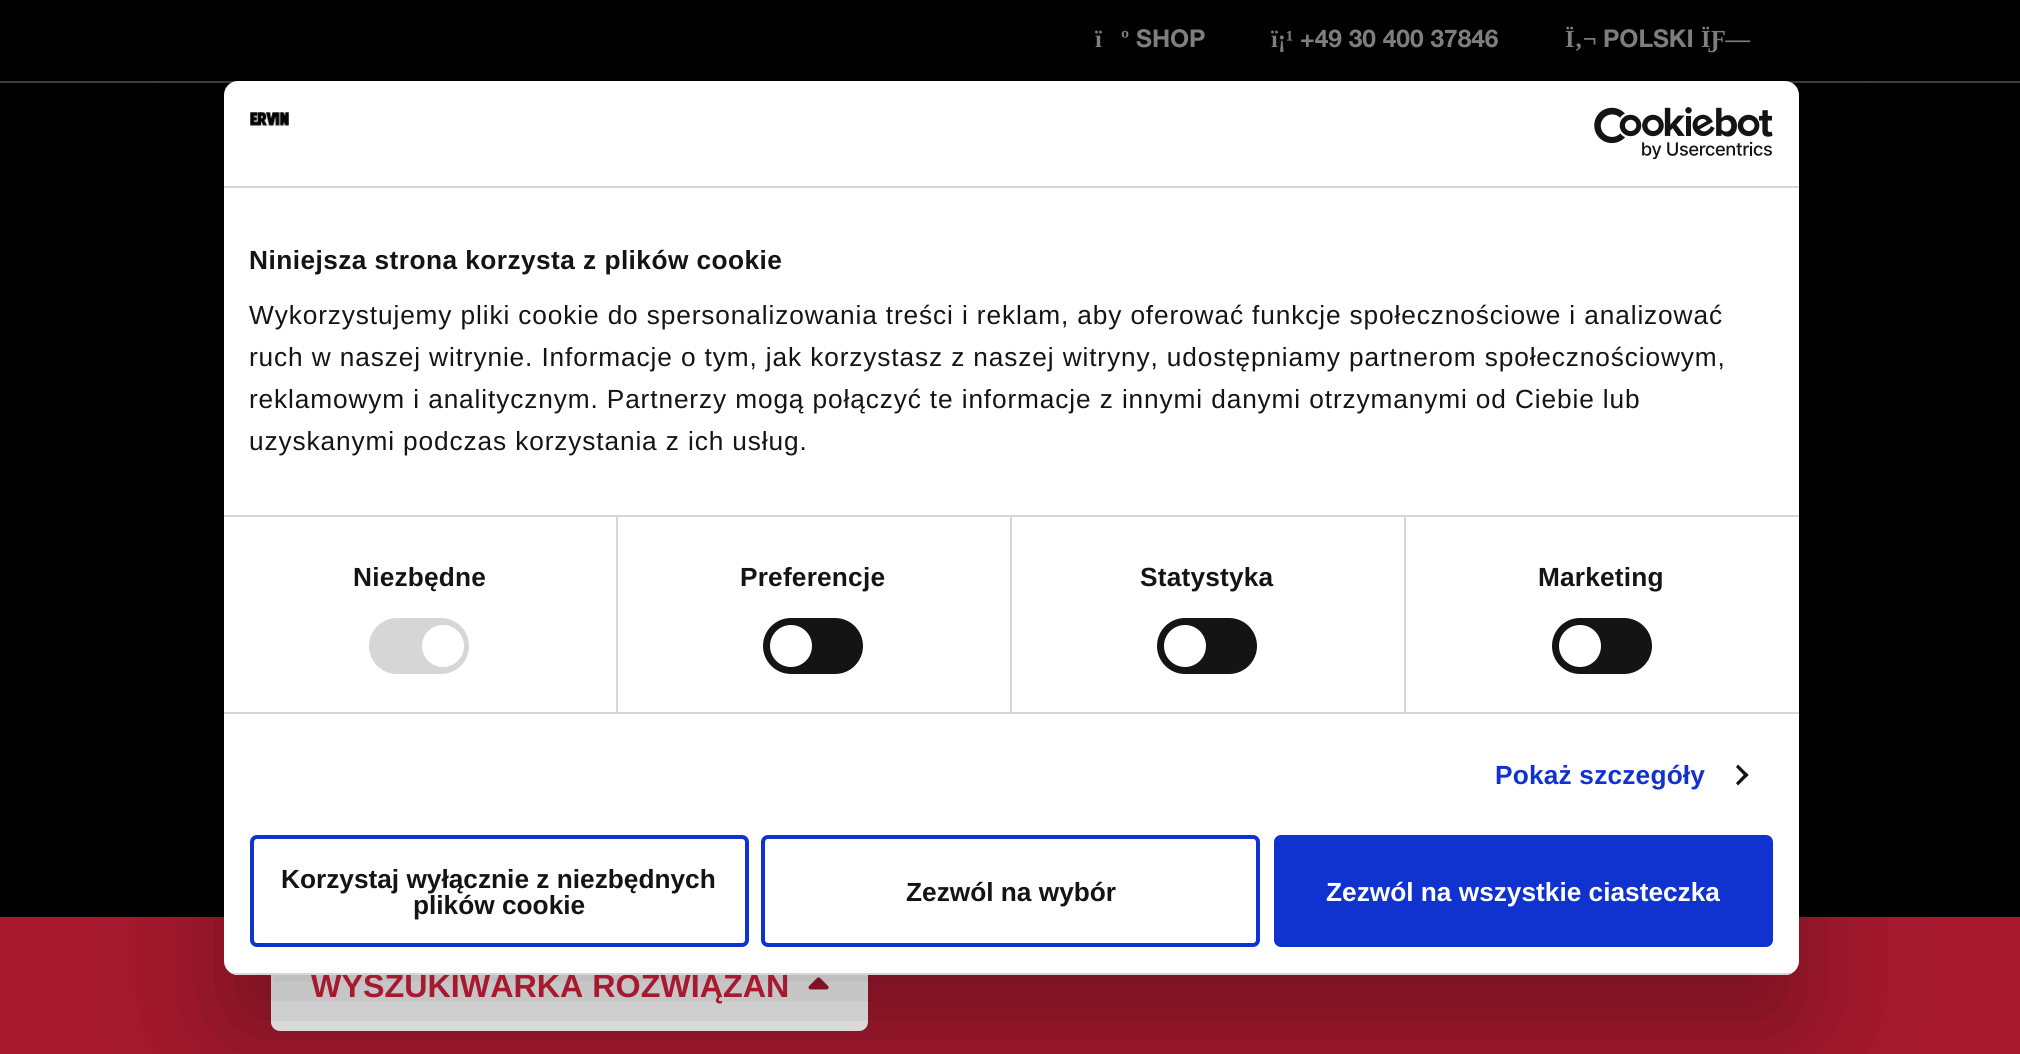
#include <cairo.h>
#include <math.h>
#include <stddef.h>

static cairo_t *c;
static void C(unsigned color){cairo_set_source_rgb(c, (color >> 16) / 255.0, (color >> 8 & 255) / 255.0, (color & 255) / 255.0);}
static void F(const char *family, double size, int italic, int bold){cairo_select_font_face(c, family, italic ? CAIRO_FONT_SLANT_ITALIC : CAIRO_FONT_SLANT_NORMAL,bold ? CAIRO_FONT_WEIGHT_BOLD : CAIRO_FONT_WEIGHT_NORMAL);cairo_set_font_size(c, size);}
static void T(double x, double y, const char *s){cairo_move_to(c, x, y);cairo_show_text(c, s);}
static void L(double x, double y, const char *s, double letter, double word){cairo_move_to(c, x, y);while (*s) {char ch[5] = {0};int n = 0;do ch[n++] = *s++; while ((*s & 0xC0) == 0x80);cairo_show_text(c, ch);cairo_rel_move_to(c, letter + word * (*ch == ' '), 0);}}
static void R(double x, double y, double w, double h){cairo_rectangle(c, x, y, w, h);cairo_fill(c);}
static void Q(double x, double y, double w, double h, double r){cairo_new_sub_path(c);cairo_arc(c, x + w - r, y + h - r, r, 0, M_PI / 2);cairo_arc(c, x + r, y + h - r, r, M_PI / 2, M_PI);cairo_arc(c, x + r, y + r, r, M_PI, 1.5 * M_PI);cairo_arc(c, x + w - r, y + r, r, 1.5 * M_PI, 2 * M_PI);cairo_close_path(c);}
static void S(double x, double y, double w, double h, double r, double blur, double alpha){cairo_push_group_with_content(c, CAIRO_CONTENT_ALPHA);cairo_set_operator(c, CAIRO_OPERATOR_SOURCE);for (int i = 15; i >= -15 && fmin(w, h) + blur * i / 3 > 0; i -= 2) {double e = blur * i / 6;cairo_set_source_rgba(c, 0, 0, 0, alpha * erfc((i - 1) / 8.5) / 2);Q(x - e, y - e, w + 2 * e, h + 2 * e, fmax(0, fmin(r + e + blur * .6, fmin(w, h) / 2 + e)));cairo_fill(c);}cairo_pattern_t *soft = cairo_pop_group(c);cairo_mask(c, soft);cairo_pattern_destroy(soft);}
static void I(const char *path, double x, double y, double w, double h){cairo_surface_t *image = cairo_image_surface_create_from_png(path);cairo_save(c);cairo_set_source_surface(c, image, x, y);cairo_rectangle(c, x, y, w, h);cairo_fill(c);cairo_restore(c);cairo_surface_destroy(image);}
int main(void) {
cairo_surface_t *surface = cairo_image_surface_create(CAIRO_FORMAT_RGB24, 2020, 1054);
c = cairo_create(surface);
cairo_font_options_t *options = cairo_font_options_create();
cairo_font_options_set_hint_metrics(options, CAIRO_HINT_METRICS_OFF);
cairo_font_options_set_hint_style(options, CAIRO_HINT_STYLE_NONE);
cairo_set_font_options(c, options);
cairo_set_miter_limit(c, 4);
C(0x000000);
cairo_paint(c);
C(0x404040);
R(0,81,2020,2);
F("Liberation Serif",24.5,0,1);
C(0x808080);
T(1095,47,"ï");
T(1121,47,"º");
F("Helvetica Neue",24.5,0,1);
T(1136,47,"SHOP");
F("Liberation Serif",24.5,0,1);
T(1271,47,"ï¡¹");
F("Helvetica Neue",24.5,0,1);
T(1300,47,"+49 30 400 37846");
F("Liberation Serif",24.5,0,1);
T(1565,47,"Ï‚¬");
F("Helvetica Neue",24.5,0,1);
T(1603,47,"POLSKI");
F("Liberation Serif",24.5,0,1);
T(1701,47,"ÏƑ—");
C(0xa6192e);
R(0,917,2020,137);
C(0xffffff);
Q(271,943,597,88,9);
cairo_fill(c);
I("3.png",808,977,21,13);
C(0x000000);
S(224,137,1575,894,14,59.5,.3);
F("Liberation Sans",32.25,0,1);
C(0xa6192e);
T(311,997,"WYSZUKIWARKA ROZWIĄZAŃ");
C(0xffffff);
Q(224,81,1575,894,14);
cairo_fill(c);
C(0xd6d6d6);
R(224,186,1575,2);
I("1.png",250,112,39,15);
I("2.png",1594,107,179,52);
R(616,516,2,196);
R(1010,516,2,196);
R(1404,516,2,196);
R(224,515,1575,2);
F("Liberation Sans",26.25,0,1);
C(0x141414);
L(249,269,"Niniejsza strona korzysta z plików cookie",.45,0);
F("Liberation Sans",26.25,0,0);
L(249,324,"Wykorzystujemy pliki cookie do spersonalizowania treści i reklam, aby oferować funkcje społecznościowe i analizować",.88,0);
L(249,366,"ruch w naszej witrynie. Informacje o tym, jak korzystasz z naszej witryny, udostępniamy partnerom społecznościowym,",.88,0);
L(249,408,"reklamowym i analitycznym. Partnerzy mogą połączyć te informacje z innymi danymi otrzymanymi od Ciebie lub",.88,0);
L(249,450,"uzyskanymi podczas korzystania z ich usług.",.88,0);
C(0xd6d6d6);
R(224,712,1575,2);
F("Liberation Sans",26.25,0,1);
C(0x141414);
L(353,586,"Niezbędne",.2,0);
C(0xd6d6d6);
Q(369,618,100,56,28);
cairo_fill(c);
C(0xffffff);
cairo_arc(c,443,646,21,0,2 * M_PI);
cairo_fill(c);
C(0x141414);
L(740,586,"Preferencje",.2,0);
Q(763,618,100,56,28);
cairo_fill(c);
C(0xffffff);
cairo_arc(c,791,646,21,0,2 * M_PI);
cairo_fill(c);
C(0x141414);
L(1140,586,"Statystyka",.2,0);
Q(1157,618,100,56,28);
cairo_fill(c);
C(0xffffff);
cairo_arc(c,1185,646,21,0,2 * M_PI);
cairo_fill(c);
C(0x141414);
L(1538,586,"Marketing",.2,0);
Q(1552,618,100,56,28);
cairo_fill(c);
C(0xffffff);
cairo_arc(c,1580,646,21,0,2 * M_PI);
cairo_fill(c);
C(0x1032cf);
L(1495,784,"Pokaż szczegóły",.2,0);
C(0x141414);
cairo_new_path(c);
cairo_move_to(c,1738,764.5);
cairo_line_to(c,1748.5,775);
cairo_line_to(c,1746,777.5);
cairo_line_to(c,1736,767);
cairo_close_path(c);
cairo_fill(c);
cairo_new_path(c);
cairo_move_to(c,1746,772.5);
cairo_line_to(c,1748.5,775);
cairo_line_to(c,1738,785.5);
cairo_line_to(c,1736,783);
cairo_close_path(c);
cairo_fill(c);
cairo_save(c);
Q(224,81,1575,894,14);
cairo_clip(c);
C(0xd6d6d6);
R(224,973,1575,2);
cairo_restore(c);
Q(252,837,495,108,5);
C(0x1032cf);
cairo_set_line_width(c,4);
cairo_stroke(c);
C(0x141414);
T(281,888,"Korzystaj wyłącznie z niezbędnych");
T(413,914,"plików cookie");
Q(763,837,495,108,5);
C(0x1032cf);
cairo_stroke(c);
C(0x141414);
T(906,901,"Zezwól na wybór");
C(0x1032cf);
Q(1276,837,495,108,5);
cairo_fill_preserve(c);
cairo_stroke(c);
C(0xffffff);
T(1326,901,"Zezwól na wszystkie ciasteczka");
cairo_surface_write_to_png(surface, "o.png");
cairo_font_options_destroy(options);
cairo_destroy(c);
cairo_surface_destroy(surface);
return 0;
}
